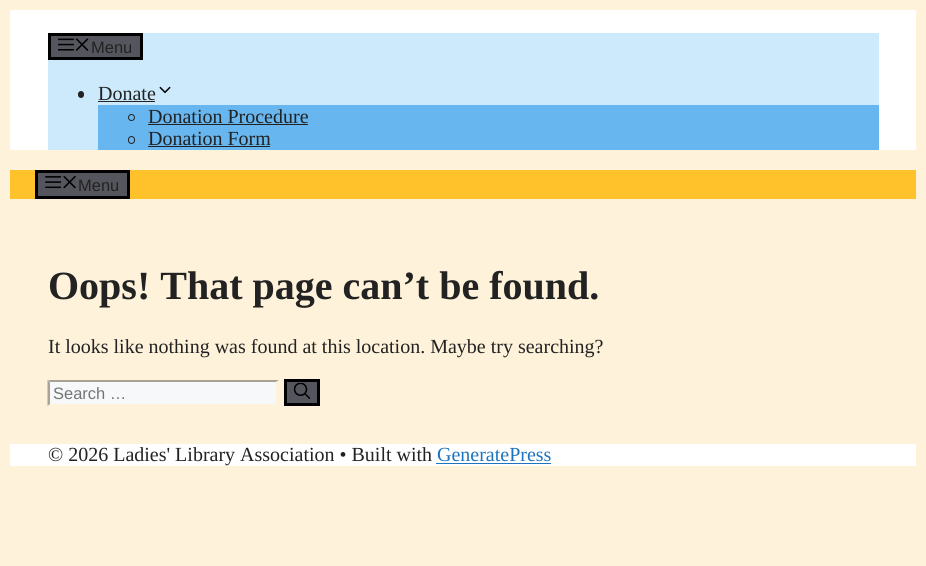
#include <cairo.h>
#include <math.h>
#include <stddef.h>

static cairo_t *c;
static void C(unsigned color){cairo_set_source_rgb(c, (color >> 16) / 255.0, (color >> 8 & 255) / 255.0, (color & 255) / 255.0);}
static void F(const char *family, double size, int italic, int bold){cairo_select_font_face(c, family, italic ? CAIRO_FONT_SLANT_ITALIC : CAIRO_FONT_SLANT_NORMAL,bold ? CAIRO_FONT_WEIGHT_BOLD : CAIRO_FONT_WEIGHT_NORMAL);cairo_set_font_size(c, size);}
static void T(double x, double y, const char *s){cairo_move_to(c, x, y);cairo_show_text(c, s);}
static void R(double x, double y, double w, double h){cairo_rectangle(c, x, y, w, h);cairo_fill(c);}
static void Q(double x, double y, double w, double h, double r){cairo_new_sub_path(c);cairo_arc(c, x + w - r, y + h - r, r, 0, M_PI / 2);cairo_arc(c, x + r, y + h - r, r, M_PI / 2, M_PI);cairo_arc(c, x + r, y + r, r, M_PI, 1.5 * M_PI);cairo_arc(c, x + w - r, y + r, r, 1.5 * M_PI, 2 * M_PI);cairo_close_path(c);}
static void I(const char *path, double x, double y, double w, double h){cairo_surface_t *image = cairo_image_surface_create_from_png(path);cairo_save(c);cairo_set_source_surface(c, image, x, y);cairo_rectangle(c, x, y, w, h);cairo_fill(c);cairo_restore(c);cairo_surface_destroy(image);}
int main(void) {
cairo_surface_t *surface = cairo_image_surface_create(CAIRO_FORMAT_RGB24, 926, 566);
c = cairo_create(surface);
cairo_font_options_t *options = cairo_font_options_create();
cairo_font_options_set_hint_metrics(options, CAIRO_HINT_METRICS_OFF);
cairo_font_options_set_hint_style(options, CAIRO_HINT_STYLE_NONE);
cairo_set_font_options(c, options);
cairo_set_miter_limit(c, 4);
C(0xfef2da);
cairo_paint(c);
C(0xffffff);
R(10,10,906,140);
C(0xcdeafc);
R(48,33,831,117);
C(0x55555e);
cairo_rectangle(c,49.5,34.5,92,24);
cairo_fill_preserve(c);
C(0x000000);
cairo_set_line_width(c,3);
cairo_stroke(c);
I("1.png",58,38,16,13);
I("2.png",75,38,14,13);
F("Liberation Sans",16.5,0,0);
C(0x222222);
T(91,53,"Menu");
Q(78,91,6,7,3);
cairo_fill(c);
F("Liberation Serif",20,0,0);
T(98,100,"Donate");
R(98,101,57,1);
I("3.png",159,86,12,8);
C(0x68b6ef);
R(98,105,781,45);
cairo_arc(c,131.5,117.5,3,0,2 * M_PI);
C(0x222222);
cairo_set_line_width(c,1);
cairo_stroke(c);
T(148,123,"Donation Procedure");
R(148,124,160,1);
Q(128.5,136.5,6,7,3);
cairo_stroke(c);
T(148,145,"Donation Form");
R(148,146,122,1);
C(0xffc22b);
R(10,170,906,29);
C(0x55555e);
cairo_rectangle(c,36.5,171.5,92,26);
cairo_fill_preserve(c);
C(0x000000);
cairo_set_line_width(c,3);
cairo_stroke(c);
I("4.png",45,176,16,13);
I("5.png",63,175,13,14);
F("Liberation Sans",16.5,0,0);
C(0x222222);
T(78,191,"Menu");
F("Liberation Serif",40,0,1);
T(48,299,"Oops! That page can’t be found.");
F("Liberation Serif",20,0,0);
T(48,353,"It looks like nothing was found at this location. Maybe try searching?");
C(0xf7f8f9);
R(48,380,231,26);
C(0xa9a191);
cairo_new_path(c);
cairo_move_to(c,48,380);
cairo_line_to(c,279,380);
cairo_line_to(c,276,382);
cairo_line_to(c,50,382);
cairo_close_path(c);
cairo_fill(c);
C(0xfef2da);
cairo_new_path(c);
cairo_move_to(c,279,380);
cairo_line_to(c,279,406);
cairo_line_to(c,276,404);
cairo_line_to(c,276,382.5);
cairo_close_path(c);
cairo_fill(c);
cairo_new_path(c);
cairo_move_to(c,279,406);
cairo_line_to(c,48,406);
cairo_line_to(c,50,404);
cairo_line_to(c,276,404);
cairo_close_path(c);
cairo_fill(c);
C(0xa9a191);
cairo_new_path(c);
cairo_move_to(c,47.5,406);
cairo_line_to(c,47.5,380);
cairo_line_to(c,50,382.5);
cairo_line_to(c,50,404);
cairo_close_path(c);
cairo_fill(c);
F("Liberation Sans",16.5,0,0);
C(0x757575);
T(53,399,"Search …");
C(0x55555e);
cairo_rectangle(c,285.5,380.5,33,24);
cairo_fill_preserve(c);
C(0x000000);
cairo_stroke(c);
I("6.png",294,383,16,16);
C(0xffffff);
R(10,444,906,22);
F("Liberation Serif",20,0,0);
C(0x222222);
T(48,461,"© 2026 Ladies' Library Association • Built with");
C(0x1e73be);
T(437,461,"GeneratePress");
R(436,463,115,1);
cairo_surface_write_to_png(surface, "o.png");
cairo_font_options_destroy(options);
cairo_destroy(c);
cairo_surface_destroy(surface);
return 0;
}
